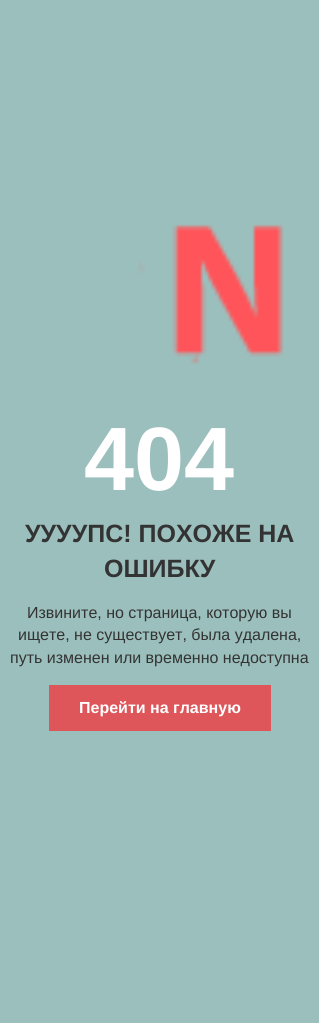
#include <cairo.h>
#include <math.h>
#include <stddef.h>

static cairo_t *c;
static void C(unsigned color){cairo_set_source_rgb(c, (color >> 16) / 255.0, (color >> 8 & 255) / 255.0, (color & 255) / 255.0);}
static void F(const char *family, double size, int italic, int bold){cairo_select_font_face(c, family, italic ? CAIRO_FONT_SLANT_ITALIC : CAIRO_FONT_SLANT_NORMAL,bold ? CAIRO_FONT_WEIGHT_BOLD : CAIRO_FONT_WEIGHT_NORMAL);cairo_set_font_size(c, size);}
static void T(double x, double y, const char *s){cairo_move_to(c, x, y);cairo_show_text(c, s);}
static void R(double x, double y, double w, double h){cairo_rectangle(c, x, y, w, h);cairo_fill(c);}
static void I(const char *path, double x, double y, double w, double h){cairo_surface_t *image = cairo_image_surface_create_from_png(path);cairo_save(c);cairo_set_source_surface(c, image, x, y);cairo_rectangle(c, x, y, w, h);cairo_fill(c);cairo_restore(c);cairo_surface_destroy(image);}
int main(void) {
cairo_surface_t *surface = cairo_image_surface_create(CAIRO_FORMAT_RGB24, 319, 1023);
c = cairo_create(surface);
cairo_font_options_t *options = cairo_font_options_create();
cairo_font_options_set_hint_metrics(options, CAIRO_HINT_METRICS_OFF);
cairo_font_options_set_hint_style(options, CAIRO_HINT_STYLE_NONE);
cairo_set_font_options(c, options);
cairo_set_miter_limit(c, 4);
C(0x9bbfbc);
cairo_paint(c);
I("1.png",138,224,146,140);
F("Liberation Sans",90,0,1);
C(0xffffff);
T(84,490,"404");
F("Liberation Sans",25,0,1);
C(0x333333);
T(25,542,"УУУУПС! ПОХОЖЕ НА");
T(104,577,"ОШИБКУ");
F("Liberation Sans",16,0,0);
T(27,618,"Извините, но страница, которую вы");
T(18,640,"ищете, не существует, была удалена,");
T(10,663,"путь изменен или временно недоступна");
C(0xdf565a);
R(49,685,222,46);
F("Liberation Sans",16,0,1);
C(0xffffff);
T(79,713,"Перейти на главную");
cairo_surface_write_to_png(surface, "o.png");
cairo_font_options_destroy(options);
cairo_destroy(c);
cairo_surface_destroy(surface);
return 0;
}
